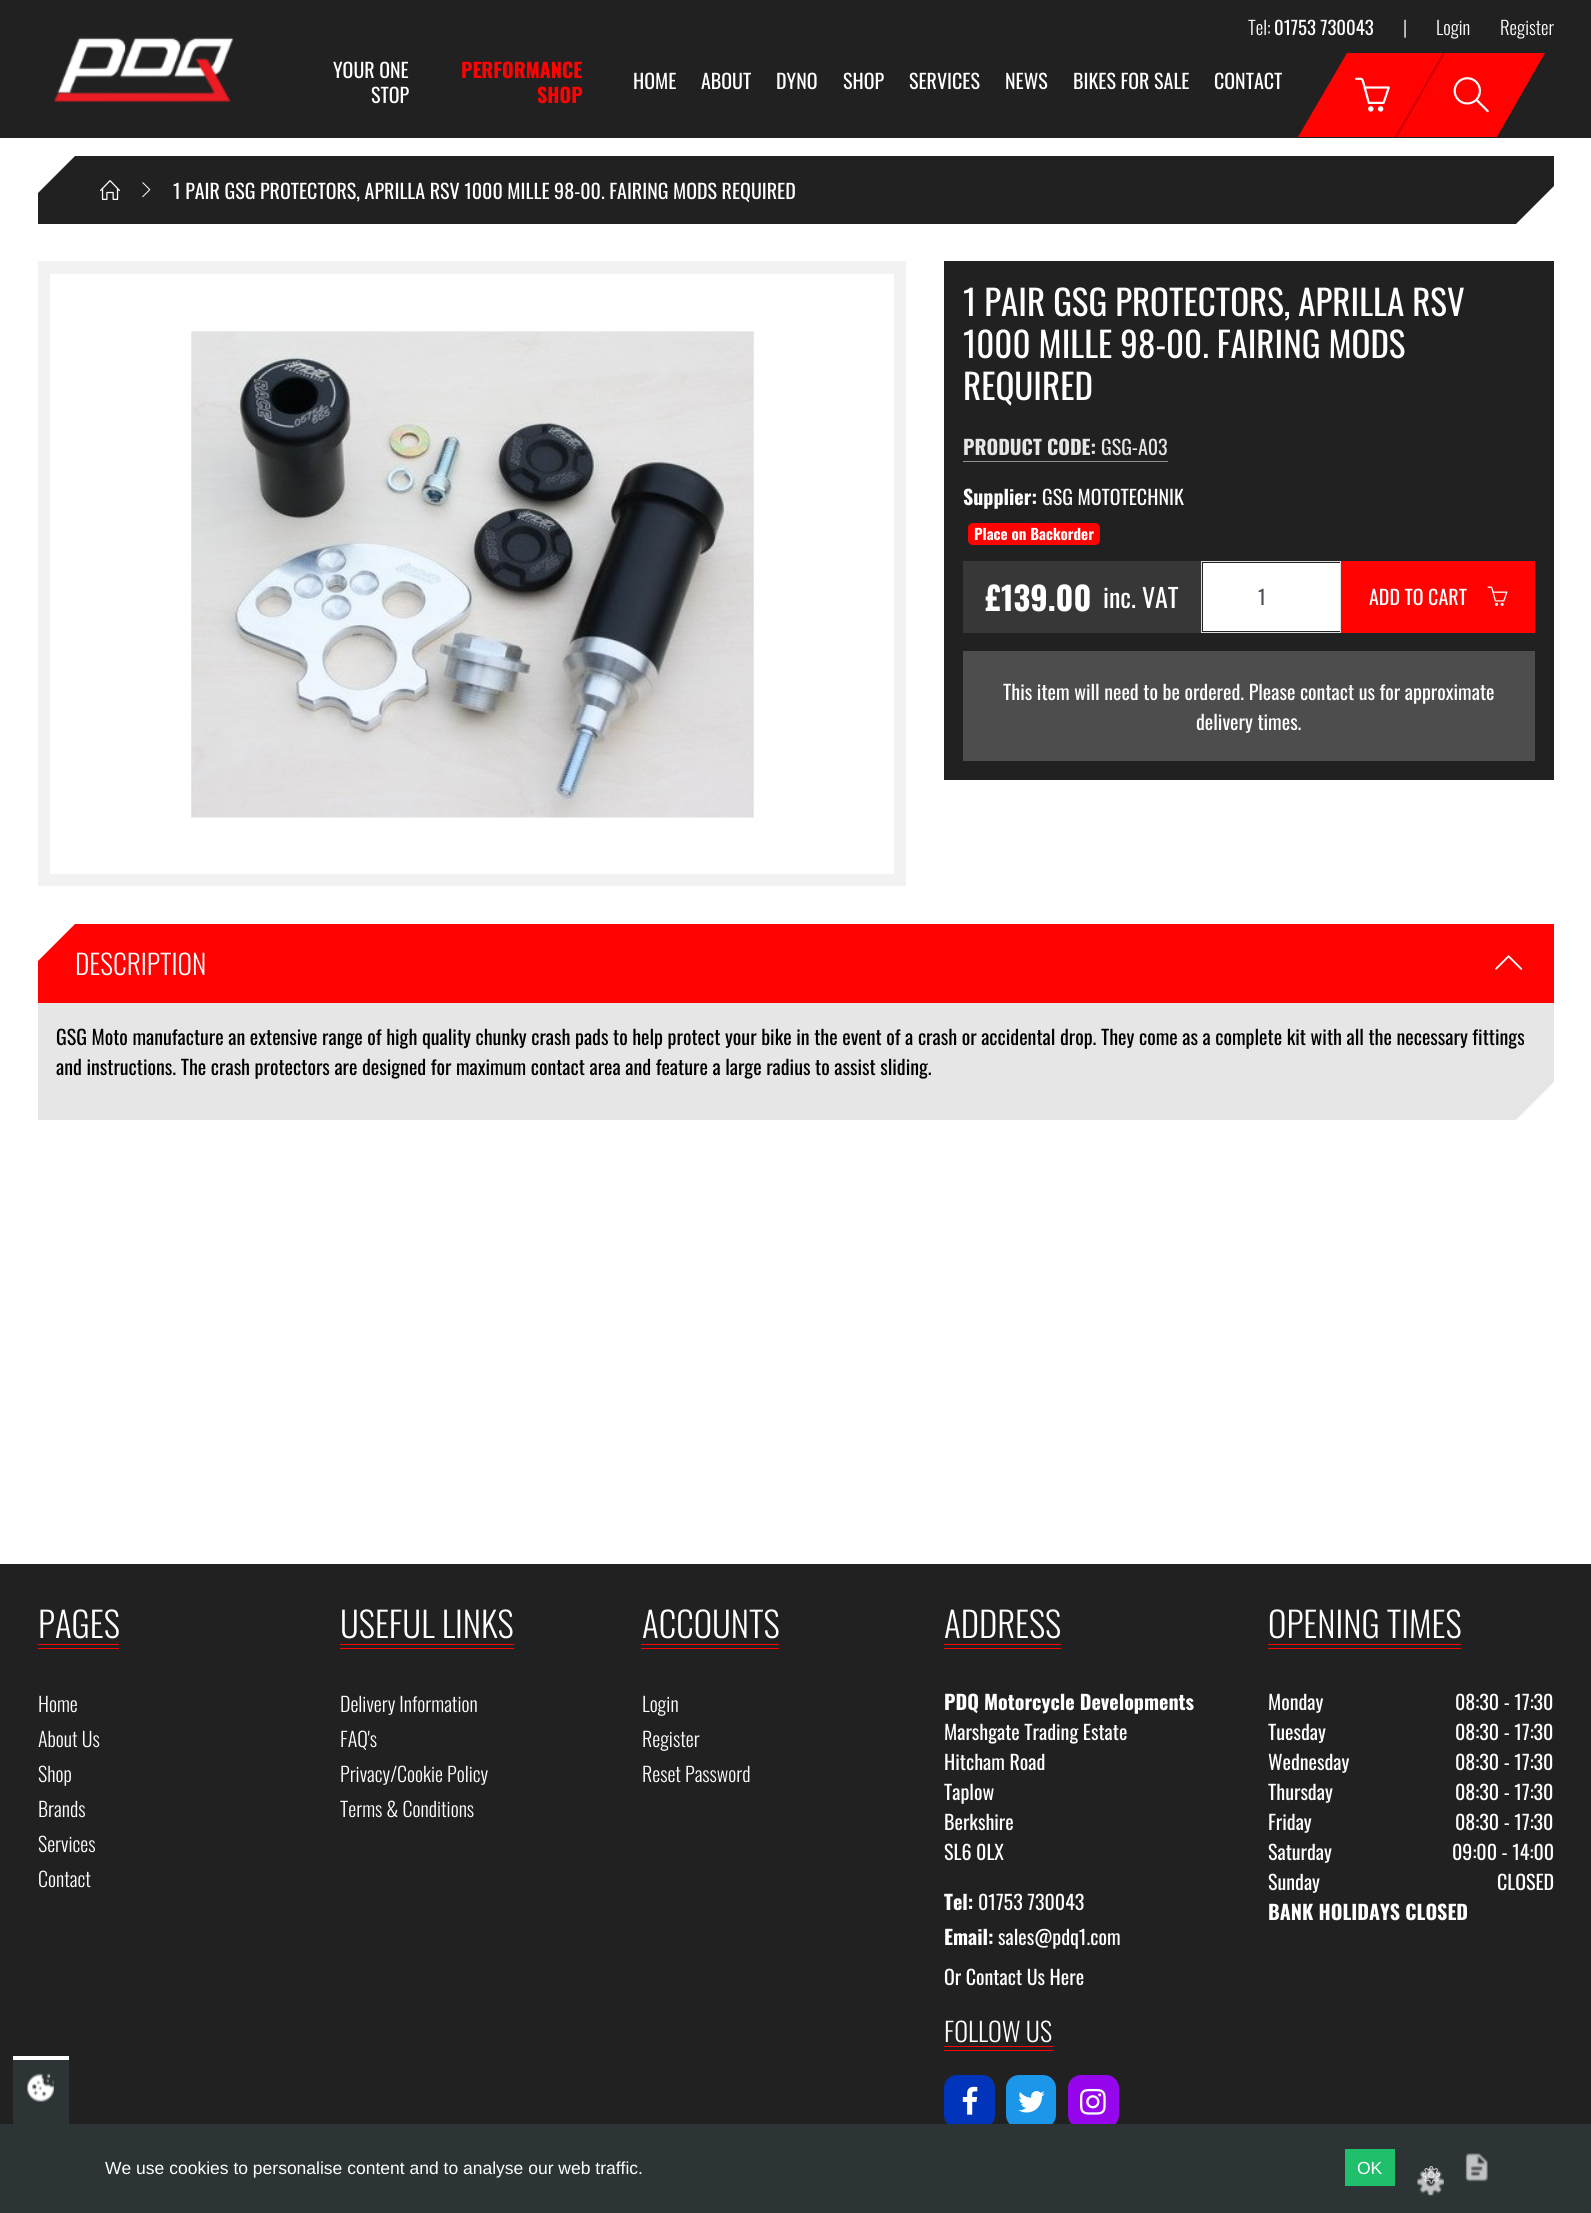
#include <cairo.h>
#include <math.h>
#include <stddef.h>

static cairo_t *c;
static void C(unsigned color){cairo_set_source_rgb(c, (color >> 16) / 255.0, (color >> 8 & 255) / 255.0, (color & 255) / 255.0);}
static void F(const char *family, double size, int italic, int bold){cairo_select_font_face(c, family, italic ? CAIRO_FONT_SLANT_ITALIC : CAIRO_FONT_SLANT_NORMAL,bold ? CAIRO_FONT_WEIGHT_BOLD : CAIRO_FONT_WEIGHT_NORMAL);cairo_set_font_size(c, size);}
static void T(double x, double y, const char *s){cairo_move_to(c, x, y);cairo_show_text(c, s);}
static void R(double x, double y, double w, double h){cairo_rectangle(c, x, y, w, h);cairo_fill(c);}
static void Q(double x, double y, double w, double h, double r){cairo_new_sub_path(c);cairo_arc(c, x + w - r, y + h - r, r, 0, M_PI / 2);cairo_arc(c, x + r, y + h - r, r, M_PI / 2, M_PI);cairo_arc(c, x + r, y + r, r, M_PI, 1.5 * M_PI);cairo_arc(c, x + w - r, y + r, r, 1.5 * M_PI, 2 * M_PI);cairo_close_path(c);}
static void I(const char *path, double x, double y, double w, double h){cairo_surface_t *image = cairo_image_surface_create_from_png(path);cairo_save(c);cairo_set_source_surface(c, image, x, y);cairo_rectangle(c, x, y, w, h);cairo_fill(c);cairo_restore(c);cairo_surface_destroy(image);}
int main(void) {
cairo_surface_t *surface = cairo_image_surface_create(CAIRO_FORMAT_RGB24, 1591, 2213);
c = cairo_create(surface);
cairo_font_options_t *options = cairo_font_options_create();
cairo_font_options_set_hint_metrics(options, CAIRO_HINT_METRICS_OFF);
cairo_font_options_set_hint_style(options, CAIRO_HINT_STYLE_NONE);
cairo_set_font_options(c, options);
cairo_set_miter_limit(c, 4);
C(0xffffff);
cairo_paint(c);
C(0x212121);
R(0,0,1591,138);
F("Oswald Light",18.75,0,0);
C(0xffffff);
T(1248,35,"Tel:");
F("Oswald",18.75,0,0);
T(1274,35,"01753 730043");
F("Oswald Light",18.75,0,0);
T(1403,35,"|");
T(1436,35,"Login");
T(1500,35,"Register");
I("1.png",53,37,181,66);
F("Oswald",20,0,0);
T(333,78,"YOUR ONE");
F("Oswald",20,0,1);
C(0xff0202);
T(461,78,"PERFORMANCE");
T(537,103,"SHOP");
F("Oswald",20,0,0);
C(0xffffff);
T(371,103,"STOP");
T(633,89,"HOME");
T(701,89,"ABOUT");
T(776,89,"DYNO");
T(843,89,"SHOP");
T(909,89,"SERVICES");
T(1005,89,"NEWS");
T(1073,89,"BIKES FOR SALE");
T(1214,89,"CONTACT");
C(0xff0202);
cairo_new_path(c);
cairo_move_to(c,1347,53);
cairo_line_to(c,1447,53);
cairo_line_to(c,1398,137);
cairo_line_to(c,1298,137);
cairo_close_path(c);
cairo_fill(c);
C(0xce0000);
cairo_new_path(c);
cairo_move_to(c,1443,53);
cairo_line_to(c,1447,53);
cairo_line_to(c,1398,137);
cairo_line_to(c,1395,137);
cairo_close_path(c);
cairo_fill(c);
I("2.png",1355,77,35,35);
C(0xff0202);
cairo_new_path(c);
cairo_move_to(c,1445,53);
cairo_line_to(c,1545,53);
cairo_line_to(c,1497,137);
cairo_line_to(c,1397,137);
cairo_close_path(c);
cairo_fill(c);
I("3.png",1453,77,36,36);
C(0x212121);
cairo_new_path(c);
cairo_move_to(c,75,156);
cairo_line_to(c,1554,156);
cairo_line_to(c,1554,186);
cairo_line_to(c,1516,224);
cairo_line_to(c,38,224);
cairo_line_to(c,38,193);
cairo_close_path(c);
cairo_fill(c);
I("4.png",100,180,20,20);
I("5.png",142,182,9,16);
C(0xffffff);
T(173,199,"1 PAIR GSG PROTECTORS, APRILLA RSV 1000 MILLE 98-00. FAIRING MODS REQUIRED");
C(0xf2f2f2);
R(38,261,868,625);
C(0xffffff);
R(50,274,844,600);
I("6.png",191,331,563,487);
C(0x212121);
R(944,261,610,519);
F("Oswald",35,0,0);
C(0xffffff);
T(963,316,"1 PAIR GSG PROTECTORS, APRILLA RSV");
T(963,358,"1000 MILLE 98-00. FAIRING MODS");
T(963,400,"REQUIRED");
C(0x909090);
R(963,461,205,1);
F("Oswald",20,0,1);
C(0xe6e6e6);
T(963,455,"PRODUCT CODE:");
F("Oswald",20,0,0);
T(1101,455,"GSG-A03");
F("Oswald",20,0,1);
C(0xffffff);
T(963,505,"Supplier:");
F("Oswald",20,0,0);
T(1042,505,"GSG MOTOTECHNIK");
C(0xff0202);
Q(968,523,132,22,5);
cairo_fill(c);
F("Oswald",15,0,1);
C(0xffffff);
T(974,540,"Place on Backorder");
C(0x373737);
R(963,561,238,72);
F("Oswald",32.5,0,1);
C(0xffffff);
T(985,611,"£139.00");
F("Oswald",26,0,0);
T(1103,608,"inc. VAT");
R(1203,563,137,68);
cairo_rectangle(c,1201.5,561.5,139,71);
C(0xdedede);
cairo_set_line_width(c,1);
cairo_stroke(c);
F("Oswald",20,0,0);
C(0x495057);
T(1258,605,"1");
C(0xff0202);
R(1341,561,194,72);
C(0xffffff);
T(1369,605,"ADD TO CART");
I("7.png",1487,586,21,20);
C(0x4d4d4d);
R(963,651,572,110);
C(0xffffff);
T(1003,700,"This item will need to be ordered. Please contact us for approximate");
T(1196,730,"delivery times.");
C(0xff0202);
cairo_new_path(c);
cairo_move_to(c,38,961);
cairo_line_to(c,75,924);
cairo_line_to(c,1554,924);
cairo_line_to(c,1554,1003);
cairo_line_to(c,38,1003);
cairo_close_path(c);
cairo_fill(c);
F("Oswald Light",27.5,0,0);
C(0xffffff);
T(75,975,"DESCRIPTION");
I("8.png",1495,955,28,15);
C(0xe6e6e6);
cairo_new_path(c);
cairo_move_to(c,38,1003);
cairo_line_to(c,38,1120);
cairo_line_to(c,1516,1120);
cairo_line_to(c,1554,1082);
cairo_line_to(c,1554,1003);
cairo_close_path(c);
cairo_fill(c);
F("Oswald",20,0,0);
C(0x000000);
T(56,1045,"GSG Moto manufacture an extensive range of high quality chunky crash pads to help protect your bike in the event of a crash or accidental drop. They come as a complete kit with all the necessary fittings");
T(56,1075,"and instructions. The crash protectors are designed for maximum contact area and feature a large radius to assist sliding.");
C(0x212121);
R(0,1564,1591,560);
C(0xff0202);
R(38,1644,81,1);
R(38,1648,81,1);
F("Oswald Light",35,0,0);
C(0xffffff);
T(38,1638,"PAGES");
F("Oswald Light",20,0,0);
T(38,1712,"Home");
T(38,1747,"About Us");
T(38,1782,"Shop");
T(38,1817,"Brands");
T(38,1852,"Services");
T(38,1887,"Contact");
C(0xff0202);
R(340,1644,174,1);
R(340,1648,174,1);
F("Oswald Light",35,0,0);
C(0xffffff);
T(340,1638,"USEFUL LINKS");
F("Oswald Light",20,0,0);
T(340,1712,"Delivery Information");
T(340,1747,"FAQ's");
T(340,1782,"Privacy/Cookie Policy");
T(340,1817,"Terms & Conditions");
C(0xff0202);
R(641,1644,138,1);
R(641,1648,138,1);
F("Oswald Light",35,0,0);
C(0xffffff);
T(642,1638,"ACCOUNTS");
F("Oswald Light",20,0,0);
T(642,1712,"Login");
T(642,1747,"Register");
T(642,1782,"Reset Password");
C(0xff0202);
R(944,1644,117,1);
R(944,1648,117,1);
F("Oswald Light",35,0,0);
C(0xffffff);
T(944,1638,"ADDRESS");
F("Oswald",20,0,1);
T(944,1710,"PDQ Motorcycle Developments");
F("Oswald",20,0,0);
T(944,1740,"Marshgate Trading Estate");
T(944,1770,"Hitcham Road");
T(944,1800,"Taplow");
T(944,1830,"Berkshire");
T(944,1860,"SL6 0LX");
F("Oswald",20,0,1);
T(944,1910,"Tel:");
F("Oswald",20,0,0);
T(978,1910,"01753 730043");
F("Oswald",20,0,1);
T(944,1945,"Email:");
F("Oswald",20,0,0);
T(998,1945,"sales@pdq1.com");
T(944,1985,"Or Contact Us Here");
C(0xff0202);
R(944,2046,109,1);
R(944,2050,109,1);
F("Oswald Light",26.25,0,0);
C(0xffffff);
T(944,2042,"FOLLOW US");
C(0x0035bb);
Q(944,2075,51,53,13);
cairo_fill(c);
I("9.png",962,2086,16,29);
C(0x1c96e9);
Q(1006,2075,50,53,13);
cairo_fill(c);
I("10.png",1018,2091,27,22);
C(0x9606ec);
Q(1068,2075,51,53,13);
cairo_fill(c);
I("11.png",1080,2088,26,27);
C(0xff0202);
R(1268,1644,193,1);
R(1268,1648,193,1);
F("Oswald Light",35,0,0);
C(0xffffff);
T(1268,1638,"OPENING TIMES");
F("Oswald",20,0,0);
T(1268,1710,"Monday");
T(1455,1710,"08:30 - 17:30");
T(1268,1740,"Tuesday");
T(1455,1740,"08:30 - 17:30");
T(1268,1770,"Wednesday");
T(1455,1770,"08:30 - 17:30");
T(1268,1800,"Thursday");
T(1455,1800,"08:30 - 17:30");
T(1268,1830,"Friday");
T(1455,1830,"08:30 - 17:30");
T(1268,1860,"Saturday");
T(1452,1860,"09:00 - 14:00");
T(1268,1890,"Sunday");
T(1497,1890,"CLOSED");
F("Oswald",20,0,1);
T(1268,1920,"BANK HOLIDAYS CLOSED");
C(0x2d3436);
R(0,2124,1591,89);
R(13,2060,56,64);
C(0xffffff);
R(13,2056,56,4);
I("12.png",27,2073,27,29);
F("Liberation Sans",17.5,0,0);
T(105,2174,"We use cookies to personalise content and to analyse our web traffic.");
C(0x20bf6b);
R(1345,2149,50,37);
C(0xffffff);
T(1357,2174,"OK");
I("13.png",1417,2168,27,28);
I("14.png",1422,2166,18,18);
I("15.png",1465,2153,23,29);
cairo_surface_write_to_png(surface, "o.png");
cairo_font_options_destroy(options);
cairo_destroy(c);
cairo_surface_destroy(surface);
return 0;
}
